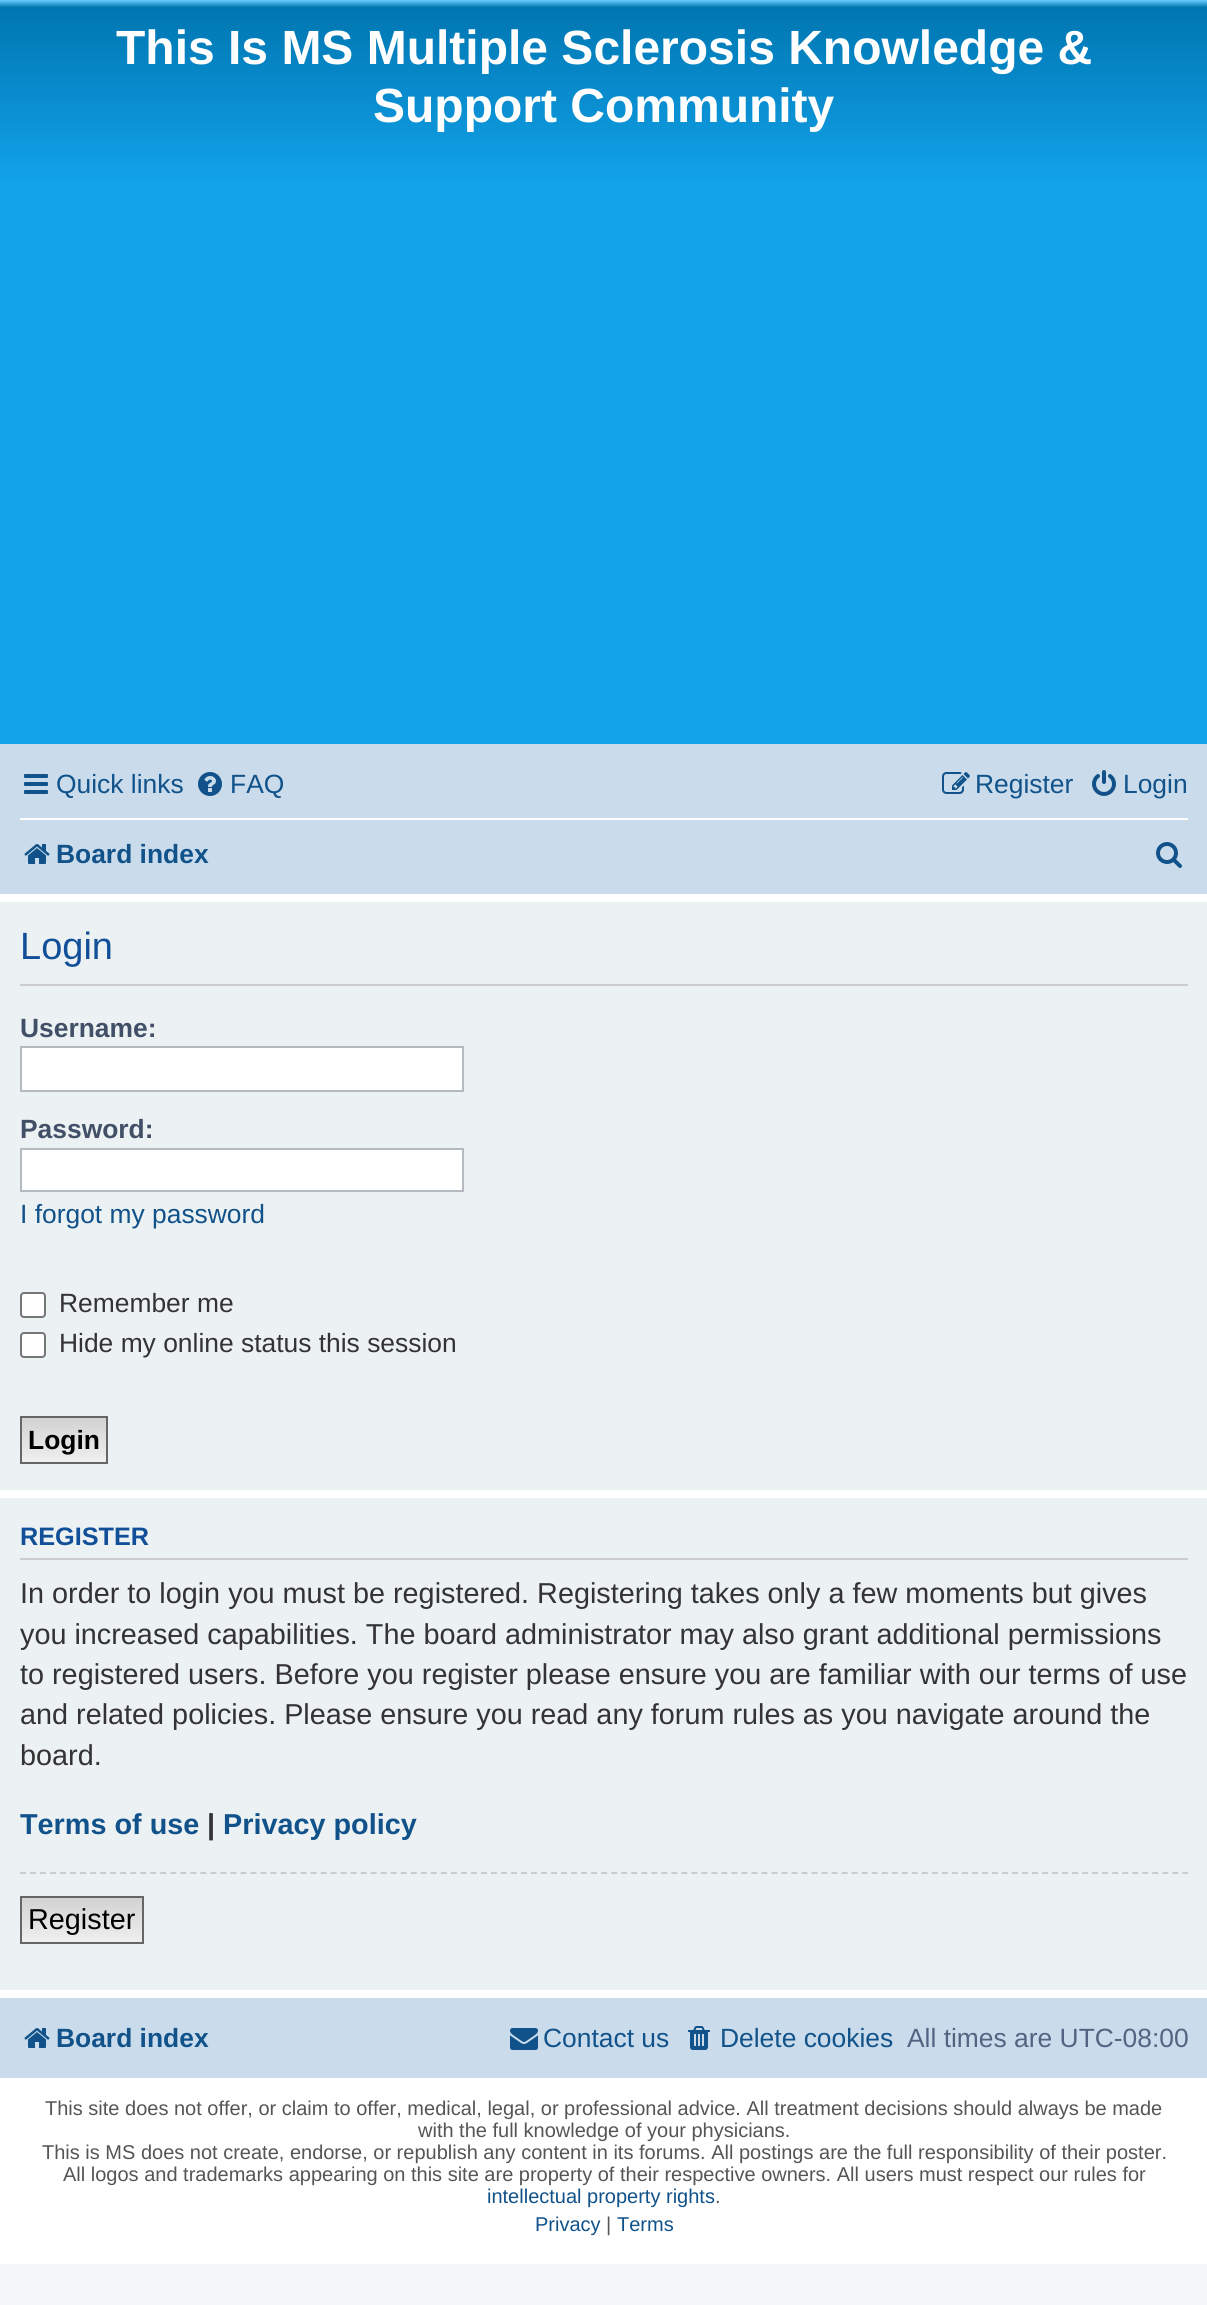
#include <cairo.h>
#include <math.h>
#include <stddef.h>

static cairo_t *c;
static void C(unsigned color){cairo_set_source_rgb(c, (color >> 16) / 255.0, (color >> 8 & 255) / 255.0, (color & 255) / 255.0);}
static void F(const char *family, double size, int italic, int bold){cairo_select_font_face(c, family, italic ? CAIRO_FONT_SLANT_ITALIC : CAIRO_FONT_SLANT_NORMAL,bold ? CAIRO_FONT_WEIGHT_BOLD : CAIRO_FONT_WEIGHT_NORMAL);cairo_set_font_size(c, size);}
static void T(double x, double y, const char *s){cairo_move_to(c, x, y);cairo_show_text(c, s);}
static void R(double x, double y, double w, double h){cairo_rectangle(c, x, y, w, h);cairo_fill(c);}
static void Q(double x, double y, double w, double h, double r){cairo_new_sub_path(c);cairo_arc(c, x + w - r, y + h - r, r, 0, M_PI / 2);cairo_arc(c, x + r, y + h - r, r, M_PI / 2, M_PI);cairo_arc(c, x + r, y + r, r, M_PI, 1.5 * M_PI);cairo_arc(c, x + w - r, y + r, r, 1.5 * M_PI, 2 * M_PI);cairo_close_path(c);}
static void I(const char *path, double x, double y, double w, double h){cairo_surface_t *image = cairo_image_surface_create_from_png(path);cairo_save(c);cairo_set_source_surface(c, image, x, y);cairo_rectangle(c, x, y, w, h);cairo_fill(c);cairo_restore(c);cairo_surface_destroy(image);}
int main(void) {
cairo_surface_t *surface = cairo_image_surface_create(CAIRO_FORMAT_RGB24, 1207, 2305);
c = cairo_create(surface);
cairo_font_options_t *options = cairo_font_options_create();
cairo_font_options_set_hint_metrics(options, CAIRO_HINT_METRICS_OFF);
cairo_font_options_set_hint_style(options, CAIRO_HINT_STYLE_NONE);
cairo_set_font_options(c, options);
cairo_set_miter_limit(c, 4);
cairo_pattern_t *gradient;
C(0xf5f7fa);
cairo_paint(c);
C(0xffffff);
R(0,894,1207,1370);
gradient = cairo_pattern_create_linear(604,0,604,746);
cairo_pattern_add_color_stop_rgba(gradient,0,0.416,0.808,1,1);
cairo_pattern_add_color_stop_rgba(gradient,.01,0,0.463,0.694,1);
cairo_pattern_add_color_stop_rgba(gradient,.25,0.071,0.639,0.922,1);
cairo_pattern_add_color_stop_rgba(gradient,1,0.071,0.639,0.922,1);
cairo_set_source(c,gradient);
cairo_pattern_destroy(gradient);
R(0,0,1207,744);
F("Liberation Sans",48,0,1);
C(0xffffff);
T(116,64,"This Is MS Multiple Sclerosis Knowledge &");
T(373,122,"Support Community");
C(0xcadceb);
R(0,744,1207,150);
I("1.png",24,774,24,20);
F("Liberation Sans",26.4,0,0);
C(0x105289);
T(56,793,"Quick links");
I("2.png",198,772,24,24);
T(230,793,"FAQ");
I("3.png",942,772,28,22);
T(975,793,"Register");
I("4.png",1092,770,24,26);
T(1123,793,"Login");
C(0xffffff);
R(20,818,1168,2);
I("5.png",24,844,26,20);
F("Liberation Sans",26.4,0,1);
C(0x105289);
T(56,863,"Board index");
I("6.png",1156,842,26,26);
C(0xecf1f3);
R(0,902,1207,588);
C(0xcccccc);
R(20,984,1168,2);
F("Liberation Sans",38,0,0);
C(0x115098);
T(20,959,"Login");
F("Liberation Sans",26.4,0,1);
C(0x425067);
T(20,1037,"Username:");
C(0xffffff);
cairo_rectangle(c,21,1047,442,44);
cairo_fill_preserve(c);
C(0xb4bac0);
cairo_stroke(c);
C(0x425067);
T(20,1138,"Password:");
C(0xffffff);
cairo_rectangle(c,21,1149,442,42);
cairo_fill_preserve(c);
C(0xb4bac0);
cairo_stroke(c);
F("Liberation Sans",26.4,0,0);
C(0x105289);
T(20,1223,"I forgot my password");
C(0xffffff);
Q(21,1293,24,24,3);
cairo_fill_preserve(c);
C(0x767676);
cairo_stroke(c);
C(0x333333);
T(59,1312,"Remember me");
C(0xffffff);
Q(21,1333,24,24,3);
cairo_fill_preserve(c);
C(0x767676);
cairo_stroke(c);
C(0x333333);
T(59,1352,"Hide my online status this session");
gradient = cairo_pattern_create_linear(64,1418,64,1462);
cairo_pattern_add_color_stop_rgba(gradient,0,0.824,0.824,0.824,1);
cairo_pattern_add_color_stop_rgba(gradient,1,0.937,0.937,0.937,1);
cairo_set_source(c,gradient);
cairo_pattern_destroy(gradient);
R(22,1418,84,44);
cairo_rectangle(c,21,1417,86,46);
C(0x666666);
cairo_stroke(c);
F("Liberation Sans",26.4,0,1);
C(0x000000);
T(28,1449,"Login");
C(0xecf1f3);
R(0,1498,1207,492);
C(0xcccccc);
R(20,1558,1168,2);
F("Liberation Sans",25.25,0,1);
C(0x115098);
T(20,1545,"REGISTER");
F("Liberation Sans",28.8,0,0);
C(0x333333);
T(20,1603,"In order to login you must be registered. Registering takes only a few moments but gives");
T(20,1644,"you increased capabilities. The board administrator may also grant additional permissions");
T(20,1684,"to registered users. Before you register please ensure you are familiar with our terms of use");
T(20,1724,"and related policies. Please ensure you read any forum rules as you navigate around the");
T(20,1765,"board.");
F("Liberation Sans",28.8,0,1);
C(0x105289);
T(20,1834,"Terms of use");
C(0x333333);
T(207,1834,"|");
C(0x105289);
T(223,1834,"Privacy policy");
cairo_new_path(c);
cairo_move_to(c,20,1873);
cairo_line_to(c,1188,1873);
C(0xcccccc);
cairo_set_dash(c,(double[]){6,4.02},2,0);
cairo_stroke(c);
gradient = cairo_pattern_create_linear(82,1898,82,1942);
cairo_pattern_add_color_stop_rgba(gradient,0,0.824,0.824,0.824,1);
cairo_pattern_add_color_stop_rgba(gradient,1,0.937,0.937,0.937,1);
cairo_set_source(c,gradient);
cairo_pattern_destroy(gradient);
R(22,1898,120,44);
cairo_rectangle(c,21,1897,122,46);
C(0x666666);
cairo_set_dash(c,NULL,0,0);
cairo_stroke(c);
F("Liberation Sans",28.8,0,0);
C(0x000000);
T(28,1929,"Register");
C(0xcadceb);
R(0,1998,1207,80);
I("5.png",24,2028,26,20);
F("Liberation Sans",26.4,0,1);
C(0x105289);
T(56,2047,"Board index");
I("7.png",510,2028,28,22);
F("Liberation Sans",26.4,0,0);
T(543,2047,"Contact us");
I("8.png",688,2026,22,24);
T(720,2047,"Delete cookies");
C(0x536482);
T(907,2047,"All times are UTC-08:00");
F("Liberation Sans",20,0,0);
C(0x555555);
T(45,2115,"This site does not offer, or claim to offer, medical, legal, or professional advice. All treatment decisions should always be made");
T(418,2137,"with the full knowledge of your physicians.");
T(42,2159,"This is MS does not create, endorse, or republish any content in its forums. All postings are the full responsibility of their poster.");
T(63,2181,"All logos and trademarks appearing on this site are property of their respective owners. All users must respect our rules for");
C(0x105289);
T(487,2203,"intellectual property rights");
C(0x555555);
T(715,2203,".");
C(0x105289);
T(535,2231,"Privacy");
C(0x555555);
T(606,2231,"|");
C(0x105289);
T(617,2231,"Terms");
cairo_surface_write_to_png(surface, "o.png");
cairo_font_options_destroy(options);
cairo_destroy(c);
cairo_surface_destroy(surface);
return 0;
}
